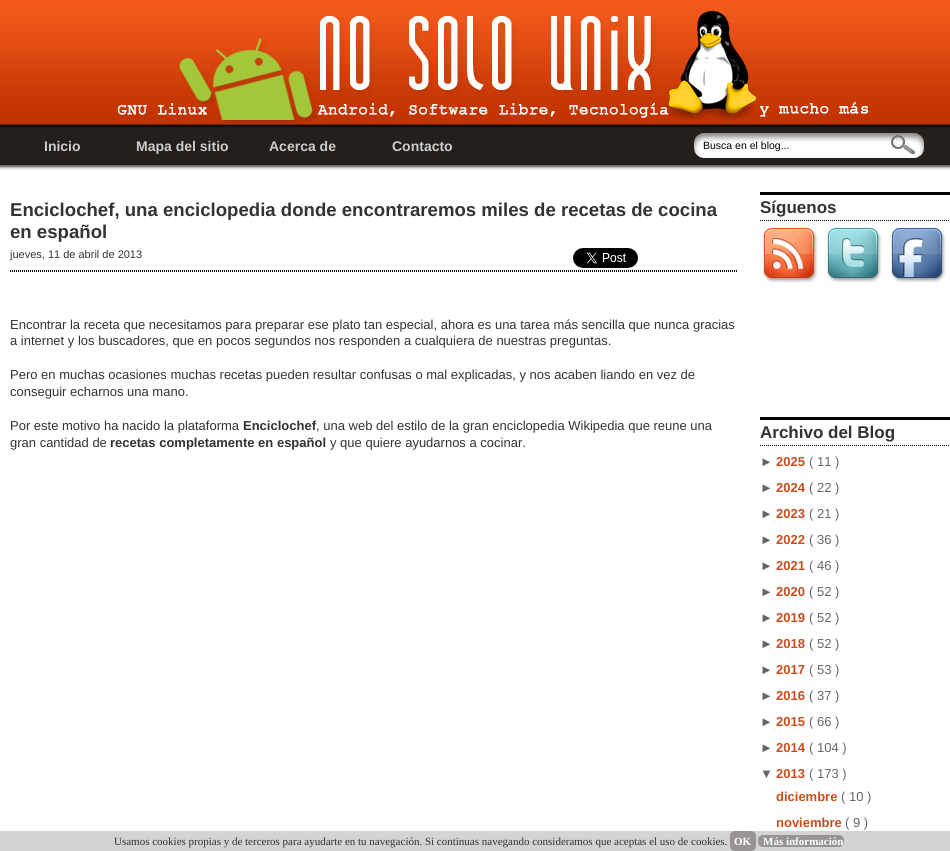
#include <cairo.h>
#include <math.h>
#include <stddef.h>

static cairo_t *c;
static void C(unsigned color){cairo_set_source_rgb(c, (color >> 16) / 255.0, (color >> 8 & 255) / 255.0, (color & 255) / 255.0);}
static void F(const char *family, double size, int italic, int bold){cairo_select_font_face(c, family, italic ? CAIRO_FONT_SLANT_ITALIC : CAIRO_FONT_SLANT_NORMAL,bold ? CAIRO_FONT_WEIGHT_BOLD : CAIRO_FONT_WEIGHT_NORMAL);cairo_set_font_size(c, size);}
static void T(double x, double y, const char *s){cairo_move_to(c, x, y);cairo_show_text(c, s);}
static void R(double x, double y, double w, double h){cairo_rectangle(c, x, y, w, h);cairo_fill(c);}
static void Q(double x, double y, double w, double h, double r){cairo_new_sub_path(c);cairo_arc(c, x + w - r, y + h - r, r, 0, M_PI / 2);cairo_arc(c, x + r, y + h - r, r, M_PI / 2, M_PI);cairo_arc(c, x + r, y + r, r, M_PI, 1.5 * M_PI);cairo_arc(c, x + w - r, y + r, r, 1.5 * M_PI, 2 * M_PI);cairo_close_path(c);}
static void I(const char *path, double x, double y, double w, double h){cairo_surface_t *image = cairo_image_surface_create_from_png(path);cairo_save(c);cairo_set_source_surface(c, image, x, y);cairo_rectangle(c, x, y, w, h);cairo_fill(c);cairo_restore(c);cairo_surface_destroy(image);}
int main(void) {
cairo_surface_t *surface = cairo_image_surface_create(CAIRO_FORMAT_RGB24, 950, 851);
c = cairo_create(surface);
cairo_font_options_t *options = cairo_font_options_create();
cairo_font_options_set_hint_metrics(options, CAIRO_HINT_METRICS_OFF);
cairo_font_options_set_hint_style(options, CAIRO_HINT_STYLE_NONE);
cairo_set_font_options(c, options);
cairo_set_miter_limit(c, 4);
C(0xffffff);
cairo_paint(c);
I("1.png",0,0,950,170);
I("2.png",117,11,752,112);
F("Liberation Sans",14,0,1);
C(0xcccccc);
T(44,151,"Inicio");
T(136,151,"Mapa del sitio");
T(269,151,"Acerca de");
T(392,151,"Contacto");
I("3.png",694,133,230,25);
F("Liberation Sans",10.5,0,0);
C(0x000000);
T(703,149,"Busca en el blog...");
I("4.png",891,135,24,20);
F("Liberation Sans",18.6,0,1);
C(0x333333);
T(10,216,"Enciclochef, una enciclopedia donde encontraremos miles de recetas de cocina");
T(10,238,"en español");
F("Liberation Sans",11,0,0);
T(10,258,"jueves, 11 de abril de 2013");
I("5.png",573,248,65,20);
I("6.png",10,270,727,2);
F("Liberation Sans",13,0,0);
T(10,329,"Encontrar la receta que necesitamos para preparar ese plato tan especial, ahora es una tarea más sencilla que nunca gracias");
T(10,345,"a internet y los buscadores, que en pocos segundos nos responden a cualquiera de nuestras preguntas.");
T(10,379,"Pero en muchas ocasiones muchas recetas pueden resultar confusas o mal explicadas, y nos acaben liando en vez de");
T(10,396,"conseguir echarnos una mano.");
T(10,430,"Por este motivo ha nacido la plataforma");
F("Liberation Sans",13,0,1);
T(243,430,"Enciclochef");
F("Liberation Sans",13,0,0);
T(316,430,", una web del estilo de la gran enciclopedia Wikipedia que reune una");
T(10,447,"gran cantidad de");
F("Liberation Sans",13,0,1);
T(110,447,"recetas completamente en español");
F("Liberation Sans",13,0,0);
T(330,447,"y que quiere ayudarnos a cocinar.");
I("7.png",760,220,189,1);
C(0x000000);
R(760,192,190,3);
F("Liberation Sans",17,0,1);
C(0x333333);
T(760,213,"Síguenos");
I("8.png",762,227,56,56);
I("9.png",826,227,56,56);
I("10.png",890,227,56,56);
I("7.png",760,445,189,1);
C(0x000000);
R(760,417,190,3);
C(0x333333);
T(760,438,"Archivo del Blog");
F("Liberation Sans",13,0,1);
C(0x666666);
T(760,466,"►");
C(0xcb4c1a);
T(776,466,"2025");
F("Liberation Sans",13,0,0);
C(0x666666);
T(809,466,"( 11 )");
F("Liberation Sans",13,0,1);
T(760,492,"►");
C(0xcb4c1a);
T(776,492,"2024");
F("Liberation Sans",13,0,0);
C(0x666666);
T(809,492,"( 22 )");
F("Liberation Sans",13,0,1);
T(760,518,"►");
C(0xcb4c1a);
T(776,518,"2023");
F("Liberation Sans",13,0,0);
C(0x666666);
T(809,518,"( 21 )");
F("Liberation Sans",13,0,1);
T(760,544,"►");
C(0xcb4c1a);
T(776,544,"2022");
F("Liberation Sans",13,0,0);
C(0x666666);
T(809,544,"( 36 )");
F("Liberation Sans",13,0,1);
T(760,570,"►");
C(0xcb4c1a);
T(776,570,"2021");
F("Liberation Sans",13,0,0);
C(0x666666);
T(809,570,"( 46 )");
F("Liberation Sans",13,0,1);
T(760,596,"►");
C(0xcb4c1a);
T(776,596,"2020");
F("Liberation Sans",13,0,0);
C(0x666666);
T(809,596,"( 52 )");
F("Liberation Sans",13,0,1);
T(760,622,"►");
C(0xcb4c1a);
T(776,622,"2019");
F("Liberation Sans",13,0,0);
C(0x666666);
T(809,622,"( 52 )");
F("Liberation Sans",13,0,1);
T(760,648,"►");
C(0xcb4c1a);
T(776,648,"2018");
F("Liberation Sans",13,0,0);
C(0x666666);
T(809,648,"( 52 )");
F("Liberation Sans",13,0,1);
T(760,674,"►");
C(0xcb4c1a);
T(776,674,"2017");
F("Liberation Sans",13,0,0);
C(0x666666);
T(809,674,"( 53 )");
F("Liberation Sans",13,0,1);
T(760,700,"►");
C(0xcb4c1a);
T(776,700,"2016");
F("Liberation Sans",13,0,0);
C(0x666666);
T(809,700,"( 37 )");
F("Liberation Sans",13,0,1);
T(760,726,"►");
C(0xcb4c1a);
T(776,726,"2015");
F("Liberation Sans",13,0,0);
C(0x666666);
T(809,726,"( 66 )");
F("Liberation Sans",13,0,1);
T(760,752,"►");
C(0xcb4c1a);
T(776,752,"2014");
F("Liberation Sans",13,0,0);
C(0x666666);
T(809,752,"( 104 )");
F("Liberation Sans",13,0,1);
T(760,778,"▼");
C(0xcb4c1a);
T(776,778,"2013");
F("Liberation Sans",13,0,0);
C(0x666666);
T(809,778,"( 173 )");
F("Liberation Sans",13,0,1);
C(0xcb4c1a);
T(776,801,"diciembre");
F("Liberation Sans",13,0,0);
C(0x666666);
T(841,801,"( 10 )");
F("Liberation Sans",13,0,1);
C(0xcb4c1a);
T(776,827,"noviembre");
F("Liberation Sans",13,0,0);
C(0x666666);
T(845,827,"( 9 )");
C(0xd3d3d3);
R(0,831,950,20);
F("Liberation Serif",11,0,0);
C(0x333333);
T(114,845,"Usamos cookies propias y de terceros para ayudarte en tu navegación. Si continuas navegando consideramos que aceptas el uso de cookies.");
C(0x989494);
Q(730,831,26,20,5);
cairo_fill(c);
F("Liberation Serif",11,0,1);
C(0xffffff);
T(734,845,"OK");
C(0x989494);
Q(758,835,86,12,5);
cairo_fill(c);
C(0xffffff);
T(763,845,"Más información");
cairo_surface_write_to_png(surface, "o.png");
cairo_font_options_destroy(options);
cairo_destroy(c);
cairo_surface_destroy(surface);
return 0;
}
